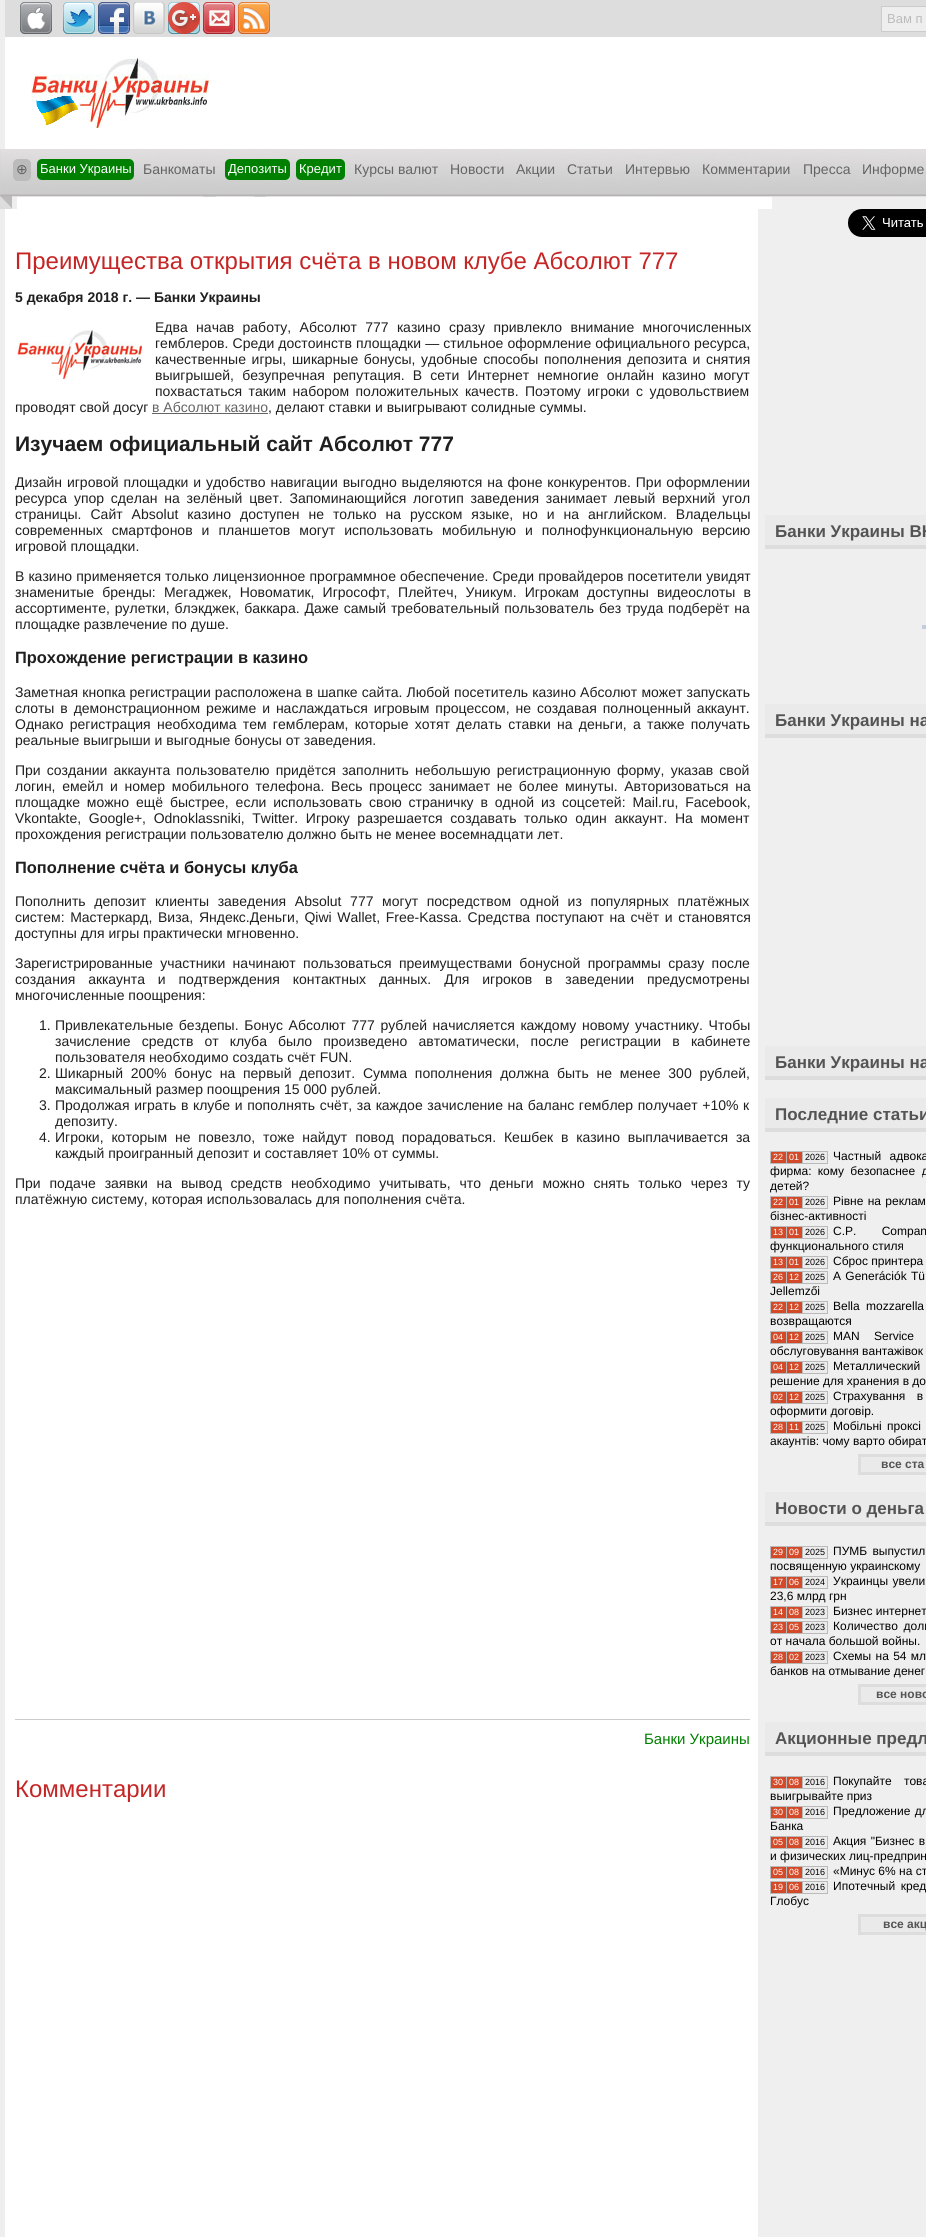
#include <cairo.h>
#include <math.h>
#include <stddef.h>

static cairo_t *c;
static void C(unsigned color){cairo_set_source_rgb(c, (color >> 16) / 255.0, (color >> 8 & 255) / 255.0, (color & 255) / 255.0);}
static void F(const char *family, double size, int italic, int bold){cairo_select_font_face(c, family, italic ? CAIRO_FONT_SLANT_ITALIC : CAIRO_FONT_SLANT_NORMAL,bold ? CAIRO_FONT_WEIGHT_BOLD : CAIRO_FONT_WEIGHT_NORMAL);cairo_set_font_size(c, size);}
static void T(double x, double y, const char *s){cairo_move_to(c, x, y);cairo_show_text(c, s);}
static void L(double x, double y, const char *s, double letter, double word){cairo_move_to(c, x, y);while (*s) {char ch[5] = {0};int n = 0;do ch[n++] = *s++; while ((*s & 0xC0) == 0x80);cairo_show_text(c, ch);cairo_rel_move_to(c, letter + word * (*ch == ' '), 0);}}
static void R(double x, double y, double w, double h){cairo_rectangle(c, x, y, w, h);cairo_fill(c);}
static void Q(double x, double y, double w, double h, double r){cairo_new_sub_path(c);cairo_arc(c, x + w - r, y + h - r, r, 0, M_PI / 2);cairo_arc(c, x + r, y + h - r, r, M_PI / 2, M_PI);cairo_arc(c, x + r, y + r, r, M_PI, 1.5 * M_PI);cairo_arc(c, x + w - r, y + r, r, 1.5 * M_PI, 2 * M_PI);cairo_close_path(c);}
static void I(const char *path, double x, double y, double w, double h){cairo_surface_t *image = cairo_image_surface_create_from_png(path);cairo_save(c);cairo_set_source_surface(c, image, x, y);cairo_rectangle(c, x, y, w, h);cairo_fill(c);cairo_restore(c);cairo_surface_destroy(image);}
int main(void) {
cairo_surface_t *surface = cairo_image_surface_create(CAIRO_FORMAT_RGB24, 926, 2237);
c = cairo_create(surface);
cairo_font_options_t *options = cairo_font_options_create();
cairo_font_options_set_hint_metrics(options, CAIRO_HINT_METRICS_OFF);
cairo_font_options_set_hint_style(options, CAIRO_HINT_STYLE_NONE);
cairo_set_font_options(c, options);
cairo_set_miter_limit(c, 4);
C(0xdddddd);
cairo_paint(c);
C(0xeeeeee);
R(0,0,5,149);
I("1.png",20,2,32,32);
I("2.png",63,2,32,32);
I("3.png",98,2,32,32);
I("4.png",133,2,32,32);
I("2.png",168,2,32,32);
I("5.png",168,2,32,32);
I("6.png",203,2,32,32);
I("7.png",238,2,32,32);
cairo_rectangle(c,881.5,6.5,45,25);
cairo_fill_preserve(c);
C(0xcccccc);
cairo_set_line_width(c,1);
cairo_stroke(c);
F("Liberation Sans",13,0,0);
C(0xbbbbbb);
T(887,23,"Вам п");
C(0xffffff);
R(5,37,921,112);
I("8.png",31,58,178,70);
I("9.png",0,149,926,60);
C(0xbbbbbb);
Q(13,159,18,22,5);
cairo_fill(c);
F("DejaVu Sans",14,0,0);
C(0x646464);
T(16,174,"⊕");
C(0x008000);
Q(37,159,97,21,5);
cairo_fill(c);
F("Liberation Sans",13,0,0);
C(0xffffff);
T(40,173,"Банки Украины");
F("Liberation Sans",14,0,0);
C(0x646464);
T(143,174,"Банкоматы");
C(0x008000);
Q(225,159,65,21,5);
cairo_fill(c);
F("Liberation Sans",13,0,0);
C(0xffffff);
T(228,173,"Депозиты");
C(0x008000);
Q(296,159,49,21,5);
cairo_fill(c);
C(0xffffff);
T(299,173,"Кредит");
F("Liberation Sans",14,0,0);
C(0x646464);
T(354,174,"Курсы валют");
T(450,174,"Новости");
T(516,174,"Акции");
T(567,174,"Статьи");
T(625,174,"Интервью");
T(702,174,"Комментарии");
T(803,174,"Пресса");
T(862,174,"Информе");
C(0xffffff);
R(5,209,753,2028);
C(0xefefef);
R(758,209,168,2028);
C(0xeeeeee);
R(0,209,5,2028);
F("Liberation Sans",24,0,0);
C(0xc52525);
T(15,269,"Преимущества открытия счёта в новом клубе Абсолют 777");
F("Liberation Sans",14,0,1);
C(0x1f1f1f);
T(15,302,"5 декабря 2018 г. — Банки Украины");
F("Liberation Sans",14,0,0);
L(155,332,"Едва начав работу, Абсолют 777 казино сразу привлекло внимание многочисленных",0,4.5);
L(155,348,"гемблеров. Среди достоинств площадки — стильное оформление официального ресурса,",0,.25);
L(155,364,"качественные игры, шикарные бонусы, удобные способы пополнения депозита и снятия",0,1.75);
L(155,380,"выигрышей, безупречная репутация. В сети Интернет немногие онлайн казино могут",0,4.25);
L(155,396,"похвастаться таким набором положительных качеств. Поэтому игроки с удовольствием",0,2.5);
T(15,412,"проводят свой досуг");
C(0x646464);
T(152,412,"в Абсолют казино");
R(152,413,116,1);
C(0x1f1f1f);
T(268,412,", делают ставки и выигрывают солидные суммы.");
I("10.png",17,330,125,49);
F("Liberation Sans",21,0,1);
T(15,451,"Изучаем официальный сайт Абсолют 777");
F("Liberation Sans",14,0,0);
L(15,487,"Дизайн игровой площадки и удобство навигации выгодно выделяются на фоне конкурентов. При оформлении",0,1);
L(15,503,"ресурса упор сделан на зелёный цвет. Запоминающийся логотип заведения занимает левый верхний угол",0,2.9);
L(15,519,"страницы. Сайт Absolut казино доступен не только на русском языке, но и на английском. Владельцы",0,5.1);
L(15,535,"современных смартфонов и планшетов могут использовать мобильную и полнофункциональную версию",0,5.1);
T(15,551,"игровой площадки.");
L(15,581,"В казино применяется только лицензионное программное обеспечение. Среди провайдеров посетители увидят",0,.25);
L(15,597,"знаменитые бренды: Мегаджек, Новоматик, Игрософт, Плейтеч, Уникум. Игрокам доступны видеослоты в",0,4.25);
L(15,613,"ассортименте, рулетки, блэкджек, баккара. Даже самый требовательный пользователь без труда подберёт на",0,1);
T(15,629,"площадке развлечение по душе.");
F("Liberation Sans",16.4,0,1);
T(15,663,"Прохождение регистрации в казино");
F("Liberation Sans",14,0,0);
L(15,697,"Заметная кнопка регистрации расположена в шапке сайта. Любой посетитель казино Абсолют может запускать",0,.25);
L(15,713,"слоты в демонстрационном режиме и наслаждаться игровым процессом, не создавая полноценный аккаунт.",0,2);
L(15,729,"Однако регистрация необходима тем гемблерам, которые хотят делать ставки на деньги, а также получать",0,2.4);
T(15,745,"реальные выигрыши и выгодные бонусы от заведения.");
L(15,775,"При создании аккаунта пользователю придётся заполнить небольшую регистрационную форму, указав свой",0,2.25);
L(15,791,"логин, емейл и номер мобильного телефона. Весь процесс занимает не более минуты. Авторизоваться на",0,2.75);
L(15,807,"площадке можно ещё быстрее, если использовать свою страничку в одной из соцсетей: Mail.ru, Facebook,",0,3);
L(15,823,"Vkontakte, Google+, Odnoklassniki, Twitter. Игроку разрешается создавать только один аккаунт. На момент",0,3.75);
T(15,839,"прохождения регистрации пользователю должно быть не менее восемнадцати лет.");
F("Liberation Sans",16.4,0,1);
T(15,873,"Пополнение счёта и бонусы клуба");
F("Liberation Sans",14,0,0);
L(15,906,"Пополнить депозит клиенты заведения Absolut 777 могут посредством одной из популярных платёжных",0,4.75);
L(15,922,"систем: Мастеркард, Виза, Яндекс.Деньги, Qiwi Wallet, Free-Kassa. Средства поступают на счёт и становятся",0,1.75);
T(15,938,"доступны для игры практически мгновенно.");
L(15,968,"Зарегистрированные участники начинают пользоваться преимуществами бонусной программы сразу после",0,3.5);
L(15,984,"создания аккаунта и подтверждения контактных данных. Для игроков в заведении предусмотрены",0,9);
T(15,1000,"многочисленные поощрения:");
T(39,1030,"1.");
L(55,1030,"Привлекательные бездепы. Бонус Абсолют 777 рублей начисляется каждому новому участнику. Чтобы",0,1.75);
L(55,1046,"зачисление средств от клуба было произведено автоматически, после регистрации в кабинете",0,7.25);
T(55,1062,"пользователя необходимо создать счёт FUN.");
T(39,1078,"2.");
L(55,1078,"Шикарный 200% бонус на первый депозит. Сумма пополнения должна быть не менее 300 рублей,",0,3.9);
T(55,1094,"максимальный размер поощрения 15 000 рублей.");
T(39,1110,"3.");
L(55,1110,"Продолжая играть в клубе и пополнять счёт, за каждое зачисление на баланс гемблер получает +10% к",0,.75);
T(55,1126,"депозиту.");
T(39,1142,"4.");
L(55,1142,"Игроки, которым не повезло, тоже найдут повод порадоваться. Кешбек в казино выплачивается за",0,4);
T(55,1158,"каждый проигранный депозит и составляет 10% от суммы.");
L(15,1188,"При подаче заявки на вывод средств необходимо учитывать, что деньги можно снять только через ту",0,4.9);
T(15,1204,"платёжную систему, которая использовалась для пополнения счёта.");
C(0xcccccc);
R(15,1719,735,1);
F("Liberation Sans",15,0,0);
C(0x008000);
T(644,1744,"Банки Украины");
F("Liberation Sans",24,0,0);
C(0xc52525);
T(15,1797,"Комментарии");
I("11.png",848,209,78,28);
C(0xeaeaea);
R(765,515,161,30);
C(0xdddddd);
R(765,545,161,4);
F("Liberation Sans",17,0,1);
C(0x545454);
T(775,537,"Банки Украины ВК");
C(0xc1cdd9);
R(922,625,4,4);
C(0xeaeaea);
R(765,704,161,30);
C(0xdddddd);
R(765,734,161,4);
C(0x545454);
T(775,726,"Банки Украины на");
C(0xeaeaea);
R(765,1046,161,30);
C(0xdddddd);
R(765,1076,161,4);
C(0x545454);
T(775,1068,"Банки Украины на");
C(0xeaeaea);
R(765,1098,161,30);
C(0xdddddd);
R(765,1128,161,4);
C(0x545454);
T(775,1120,"Последние статьи");
cairo_rectangle(c,770.5,1151.5,57,12);
C(0xbababa);
cairo_stroke(c);
C(0xd44a28);
R(771,1152,15,11);
C(0xbababa);
R(786,1152,1,11);
F("Liberation Sans",9,0,0);
C(0xffffff);
T(773,1160,"22");
C(0xd44a28);
R(787,1152,15,11);
C(0xbababa);
R(802,1152,1,11);
C(0xffffff);
T(789,1160,"01");
C(0xececec);
R(803,1152,24,11);
C(0x000000);
T(805,1160,"2026");
F("Liberation Sans",12,0,0);
L(833,1160,"Частный адвока",0,5);
L(770,1175,"фирма: кому безопаснее д",0,3);
T(770,1190,"детей?");
cairo_rectangle(c,770.5,1196.5,57,12);
C(0xbababa);
cairo_stroke(c);
C(0xd44a28);
R(771,1197,15,11);
C(0xbababa);
R(786,1197,1,11);
F("Liberation Sans",9,0,0);
C(0xffffff);
T(773,1205,"22");
C(0xd44a28);
R(787,1197,15,11);
C(0xbababa);
R(802,1197,1,11);
C(0xffffff);
T(789,1205,"01");
C(0xececec);
R(803,1197,24,11);
C(0x000000);
T(805,1205,"2026");
F("Liberation Sans",12,0,0);
L(833,1205,"Рівне на реклам",0,1);
T(770,1220,"бізнес-активності");
cairo_rectangle(c,770.5,1226.5,57,12);
C(0xbababa);
cairo_stroke(c);
C(0xd44a28);
R(771,1227,15,11);
C(0xbababa);
R(786,1227,1,11);
F("Liberation Sans",9,0,0);
C(0xffffff);
T(773,1235,"13");
C(0xd44a28);
R(787,1227,15,11);
C(0xbababa);
R(802,1227,1,11);
C(0xffffff);
T(789,1235,"01");
C(0xececec);
R(803,1227,24,11);
C(0x000000);
T(805,1235,"2026");
F("Liberation Sans",12,0,0);
L(833,1235,"C.P. Compan",0,22);
T(770,1250,"функционального стиля");
cairo_rectangle(c,770.5,1256.5,57,12);
C(0xbababa);
cairo_stroke(c);
C(0xd44a28);
R(771,1257,15,11);
C(0xbababa);
R(786,1257,1,11);
F("Liberation Sans",9,0,0);
C(0xffffff);
T(773,1265,"13");
C(0xd44a28);
R(787,1257,15,11);
C(0xbababa);
R(802,1257,1,11);
C(0xffffff);
T(789,1265,"01");
C(0xececec);
R(803,1257,24,11);
C(0x000000);
T(805,1265,"2026");
F("Liberation Sans",12,0,0);
T(833,1265,"Сброс принтера");
cairo_rectangle(c,770.5,1271.5,57,12);
C(0xbababa);
cairo_stroke(c);
C(0xd44a28);
R(771,1272,15,11);
C(0xbababa);
R(786,1272,1,11);
F("Liberation Sans",9,0,0);
C(0xffffff);
T(773,1280,"26");
C(0xd44a28);
R(787,1272,15,11);
C(0xbababa);
R(802,1272,1,11);
C(0xffffff);
T(789,1280,"12");
C(0xececec);
R(803,1272,24,11);
C(0x000000);
T(805,1280,"2025");
F("Liberation Sans",12,0,0);
L(833,1280,"A Generációk Tü",0,1);
T(770,1295,"Jellemzői");
cairo_rectangle(c,770.5,1301.5,57,12);
C(0xbababa);
cairo_stroke(c);
C(0xd44a28);
R(771,1302,15,11);
C(0xbababa);
R(786,1302,1,11);
F("Liberation Sans",9,0,0);
C(0xffffff);
T(773,1310,"22");
C(0xd44a28);
R(787,1302,15,11);
C(0xbababa);
R(802,1302,1,11);
C(0xffffff);
T(789,1310,"12");
C(0xececec);
R(803,1302,24,11);
C(0x000000);
T(805,1310,"2025");
F("Liberation Sans",12,0,0);
L(833,1310,"Bella mozzarella",0,3);
T(770,1325,"возвращаются");
cairo_rectangle(c,770.5,1331.5,57,12);
C(0xbababa);
cairo_stroke(c);
C(0xd44a28);
R(771,1332,15,11);
C(0xbababa);
R(786,1332,1,11);
F("Liberation Sans",9,0,0);
C(0xffffff);
T(773,1340,"04");
C(0xd44a28);
R(787,1332,15,11);
C(0xbababa);
R(802,1332,1,11);
C(0xffffff);
T(789,1340,"12");
C(0xececec);
R(803,1332,24,11);
C(0x000000);
T(805,1340,"2025");
F("Liberation Sans",12,0,0);
L(833,1340,"MAN Service",0,11);
T(770,1355,"обслуговування вантажівок");
cairo_rectangle(c,770.5,1361.5,57,12);
C(0xbababa);
cairo_stroke(c);
C(0xd44a28);
R(771,1362,15,11);
C(0xbababa);
R(786,1362,1,11);
F("Liberation Sans",9,0,0);
C(0xffffff);
T(773,1370,"04");
C(0xd44a28);
R(787,1362,15,11);
C(0xbababa);
R(802,1362,1,11);
C(0xffffff);
T(789,1370,"12");
C(0xececec);
R(803,1362,24,11);
C(0x000000);
T(805,1370,"2025");
F("Liberation Sans",12,0,0);
L(833,1370,"Металлический",0,20);
T(770,1385,"решение для хранения в до");
cairo_rectangle(c,770.5,1391.5,57,12);
C(0xbababa);
cairo_stroke(c);
C(0xd44a28);
R(771,1392,15,11);
C(0xbababa);
R(786,1392,1,11);
F("Liberation Sans",9,0,0);
C(0xffffff);
T(773,1400,"02");
C(0xd44a28);
R(787,1392,15,11);
C(0xbababa);
R(802,1392,1,11);
C(0xffffff);
T(789,1400,"12");
C(0xececec);
R(803,1392,24,11);
C(0x000000);
T(805,1400,"2025");
F("Liberation Sans",12,0,0);
L(833,1400,"Страхування в",0,8);
T(770,1415,"оформити договір.");
cairo_rectangle(c,770.5,1421.5,57,12);
C(0xbababa);
cairo_stroke(c);
C(0xd44a28);
R(771,1422,15,11);
C(0xbababa);
R(786,1422,1,11);
F("Liberation Sans",9,0,0);
C(0xffffff);
T(773,1430,"28");
C(0xd44a28);
R(787,1422,15,11);
C(0xbababa);
R(802,1422,1,11);
C(0xffffff);
T(789,1430,"11");
C(0xececec);
R(803,1422,24,11);
C(0x000000);
T(805,1430,"2025");
F("Liberation Sans",12,0,0);
L(833,1430,"Мобільні проксі",0,2);
T(770,1445,"акаунтів: чому варто обират");
C(0xeaeaea);
cairo_rectangle(c,859.5,1455.5,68,18);
cairo_fill_preserve(c);
C(0xdddddd);
cairo_set_line_width(c,3);
cairo_stroke(c);
F("Liberation Sans",12,0,1);
C(0x545454);
T(881,1468,"все ста");
C(0xeaeaea);
R(765,1492,161,30);
C(0xdddddd);
R(765,1522,161,4);
F("Liberation Sans",17,0,1);
C(0x545454);
T(775,1514,"Новости о деньга");
cairo_rectangle(c,770.5,1546.5,57,12);
C(0xbababa);
cairo_set_line_width(c,1);
cairo_stroke(c);
C(0xd44a28);
R(771,1547,15,11);
C(0xbababa);
R(786,1547,1,11);
F("Liberation Sans",9,0,0);
C(0xffffff);
T(773,1555,"29");
C(0xd44a28);
R(787,1547,15,11);
C(0xbababa);
R(802,1547,1,11);
C(0xffffff);
T(789,1555,"09");
C(0xececec);
R(803,1547,24,11);
C(0x000000);
T(805,1555,"2025");
F("Liberation Sans",12,0,0);
L(833,1555,"ПУМБ выпустил",0,2);
T(770,1570,"посвященную украинскому");
cairo_rectangle(c,770.5,1576.5,57,12);
C(0xbababa);
cairo_stroke(c);
C(0xd44a28);
R(771,1577,15,11);
C(0xbababa);
R(786,1577,1,11);
F("Liberation Sans",9,0,0);
C(0xffffff);
T(773,1585,"17");
C(0xd44a28);
R(787,1577,15,11);
C(0xbababa);
R(802,1577,1,11);
C(0xffffff);
T(789,1585,"06");
C(0xececec);
R(803,1577,24,11);
C(0x000000);
T(805,1585,"2024");
F("Liberation Sans",12,0,0);
L(833,1585,"Украинцы увели",0,1);
T(770,1600,"23,6 млрд грн");
cairo_rectangle(c,770.5,1606.5,57,12);
C(0xbababa);
cairo_stroke(c);
C(0xd44a28);
R(771,1607,15,11);
C(0xbababa);
R(786,1607,1,11);
F("Liberation Sans",9,0,0);
C(0xffffff);
T(773,1615,"14");
C(0xd44a28);
R(787,1607,15,11);
C(0xbababa);
R(802,1607,1,11);
C(0xffffff);
T(789,1615,"08");
C(0xececec);
R(803,1607,24,11);
C(0x000000);
T(805,1615,"2023");
F("Liberation Sans",12,0,0);
T(833,1615,"Бизнес интернет");
cairo_rectangle(c,770.5,1621.5,57,12);
C(0xbababa);
cairo_stroke(c);
C(0xd44a28);
R(771,1622,15,11);
C(0xbababa);
R(786,1622,1,11);
F("Liberation Sans",9,0,0);
C(0xffffff);
T(773,1630,"23");
C(0xd44a28);
R(787,1622,15,11);
C(0xbababa);
R(802,1622,1,11);
C(0xffffff);
T(789,1630,"05");
C(0xececec);
R(803,1622,24,11);
C(0x000000);
T(805,1630,"2023");
F("Liberation Sans",12,0,0);
L(833,1630,"Количество долг",0,2.4);
T(770,1645,"от начала большой войны.");
cairo_rectangle(c,770.5,1651.5,57,12);
C(0xbababa);
cairo_stroke(c);
C(0xd44a28);
R(771,1652,15,11);
C(0xbababa);
R(786,1652,1,11);
F("Liberation Sans",9,0,0);
C(0xffffff);
T(773,1660,"28");
C(0xd44a28);
R(787,1652,15,11);
C(0xbababa);
R(802,1652,1,11);
C(0xffffff);
T(789,1660,"02");
C(0xececec);
R(803,1652,24,11);
C(0x000000);
T(805,1660,"2023");
F("Liberation Sans",12,0,0);
L(833,1660,"Схемы на 54 мл",0,1);
T(770,1675,"банков на отмывание денег");
C(0xeaeaea);
cairo_rectangle(c,859.5,1685.5,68,18);
cairo_fill_preserve(c);
C(0xdddddd);
cairo_set_line_width(c,3);
cairo_stroke(c);
F("Liberation Sans",12,0,1);
C(0x545454);
T(876,1698,"все ново");
C(0xeaeaea);
R(765,1722,161,30);
C(0xdddddd);
R(765,1752,161,4);
F("Liberation Sans",17,0,1);
C(0x545454);
T(775,1744,"Акционные предл");
cairo_rectangle(c,770.5,1776.5,57,12);
C(0xbababa);
cairo_set_line_width(c,1);
cairo_stroke(c);
C(0xd44a28);
R(771,1777,15,11);
C(0xbababa);
R(786,1777,1,11);
F("Liberation Sans",9,0,0);
C(0xffffff);
T(773,1785,"30");
C(0xd44a28);
R(787,1777,15,11);
C(0xbababa);
R(802,1777,1,11);
C(0xffffff);
T(789,1785,"08");
C(0xececec);
R(803,1777,24,11);
C(0x000000);
T(805,1785,"2016");
F("Liberation Sans",12,0,0);
L(833,1785,"Покупайте това",0,9);
T(770,1800,"выигрывайте приз");
cairo_rectangle(c,770.5,1806.5,57,12);
C(0xbababa);
cairo_stroke(c);
C(0xd44a28);
R(771,1807,15,11);
C(0xbababa);
R(786,1807,1,11);
F("Liberation Sans",9,0,0);
C(0xffffff);
T(773,1815,"30");
C(0xd44a28);
R(787,1807,15,11);
C(0xbababa);
R(802,1807,1,11);
C(0xffffff);
T(789,1815,"08");
C(0xececec);
R(803,1807,24,11);
C(0x000000);
T(805,1815,"2016");
F("Liberation Sans",12,0,0);
L(833,1815,"Предложение дл",0,1);
T(770,1830,"Банка");
cairo_rectangle(c,770.5,1836.5,57,12);
C(0xbababa);
cairo_stroke(c);
C(0xd44a28);
R(771,1837,15,11);
C(0xbababa);
R(786,1837,1,11);
F("Liberation Sans",9,0,0);
C(0xffffff);
T(773,1845,"05");
C(0xd44a28);
R(787,1837,15,11);
C(0xbababa);
R(802,1837,1,11);
C(0xffffff);
T(789,1845,"08");
C(0xececec);
R(803,1837,24,11);
C(0x000000);
T(805,1845,"2016");
F("Liberation Sans",12,0,0);
L(833,1845,"Акция \"Бизнес в",0,1);
T(770,1860,"и физических лиц-предприн");
cairo_rectangle(c,770.5,1866.5,57,12);
C(0xbababa);
cairo_stroke(c);
C(0xd44a28);
R(771,1867,15,11);
C(0xbababa);
R(786,1867,1,11);
F("Liberation Sans",9,0,0);
C(0xffffff);
T(773,1875,"05");
C(0xd44a28);
R(787,1867,15,11);
C(0xbababa);
R(802,1867,1,11);
C(0xffffff);
T(789,1875,"08");
C(0xececec);
R(803,1867,24,11);
C(0x000000);
T(805,1875,"2016");
F("Liberation Sans",12,0,0);
T(833,1875,"«Минус 6% на ст");
cairo_rectangle(c,770.5,1881.5,57,12);
C(0xbababa);
cairo_stroke(c);
C(0xd44a28);
R(771,1882,15,11);
C(0xbababa);
R(786,1882,1,11);
F("Liberation Sans",9,0,0);
C(0xffffff);
T(773,1890,"19");
C(0xd44a28);
R(787,1882,15,11);
C(0xbababa);
R(802,1882,1,11);
C(0xffffff);
T(789,1890,"06");
C(0xececec);
R(803,1882,24,11);
C(0x000000);
T(805,1890,"2016");
F("Liberation Sans",12,0,0);
L(833,1890,"Ипотечный кред",0,2.25);
T(770,1905,"Глобус");
C(0xeaeaea);
cairo_rectangle(c,859.5,1915.5,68,18);
cairo_fill_preserve(c);
C(0xdddddd);
cairo_set_line_width(c,3);
cairo_stroke(c);
F("Liberation Sans",12,0,1);
C(0x545454);
T(883,1928,"все акц");
cairo_surface_write_to_png(surface, "o.png");
cairo_font_options_destroy(options);
cairo_destroy(c);
cairo_surface_destroy(surface);
return 0;
}
